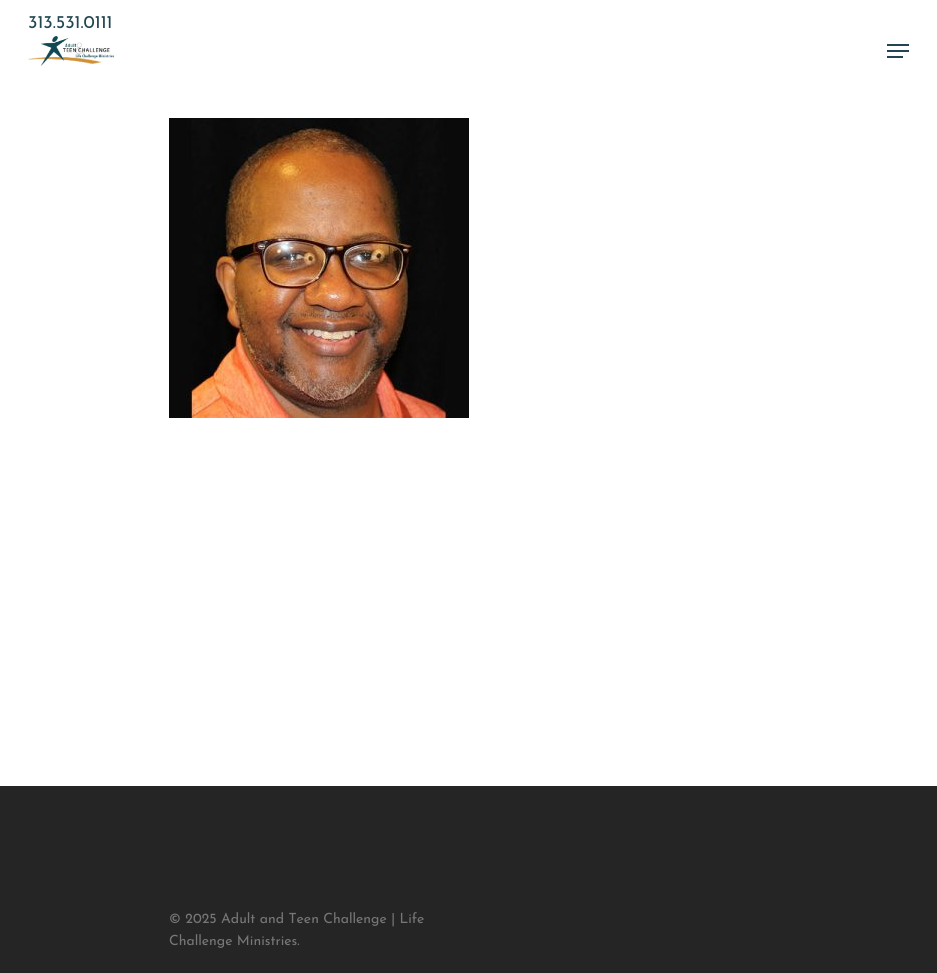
#include <cairo.h>
#include <math.h>
#include <stddef.h>

static cairo_t *c;
static void C(unsigned color){cairo_set_source_rgb(c, (color >> 16) / 255.0, (color >> 8 & 255) / 255.0, (color & 255) / 255.0);}
static void F(const char *family, double size, int italic, int bold){cairo_select_font_face(c, family, italic ? CAIRO_FONT_SLANT_ITALIC : CAIRO_FONT_SLANT_NORMAL,bold ? CAIRO_FONT_WEIGHT_BOLD : CAIRO_FONT_WEIGHT_NORMAL);cairo_set_font_size(c, size);}
static void T(double x, double y, const char *s){cairo_move_to(c, x, y);cairo_show_text(c, s);}
static void R(double x, double y, double w, double h){cairo_rectangle(c, x, y, w, h);cairo_fill(c);}
static void I(const char *path, double x, double y, double w, double h){cairo_surface_t *image = cairo_image_surface_create_from_png(path);cairo_save(c);cairo_set_source_surface(c, image, x, y);cairo_rectangle(c, x, y, w, h);cairo_fill(c);cairo_restore(c);cairo_surface_destroy(image);}
int main(void) {
cairo_surface_t *surface = cairo_image_surface_create(CAIRO_FORMAT_RGB24, 937, 973);
c = cairo_create(surface);
cairo_font_options_t *options = cairo_font_options_create();
cairo_font_options_set_hint_metrics(options, CAIRO_HINT_METRICS_OFF);
cairo_font_options_set_hint_style(options, CAIRO_HINT_STYLE_NONE);
cairo_set_font_options(c, options);
cairo_set_miter_limit(c, 4);
C(0xffffff);
cairo_paint(c);
F("Josefin Sans",18,0,0);
C(0x214652);
T(28,28,"313.531.0111");
I("1.png",28,36,86,30);
R(887,44,22,2);
R(887,56,16,2);
R(887,50,22,2);
I("2.png",169,118,300,300);
C(0x252525);
R(0,786,937,187);
F("Josefin Sans",14,0,0);
C(0x777777);
T(169,923,"© 2025 Adult and Teen Challenge | Life");
T(169,945,"Challenge Ministries.");
cairo_surface_write_to_png(surface, "o.png");
cairo_font_options_destroy(options);
cairo_destroy(c);
cairo_surface_destroy(surface);
return 0;
}
